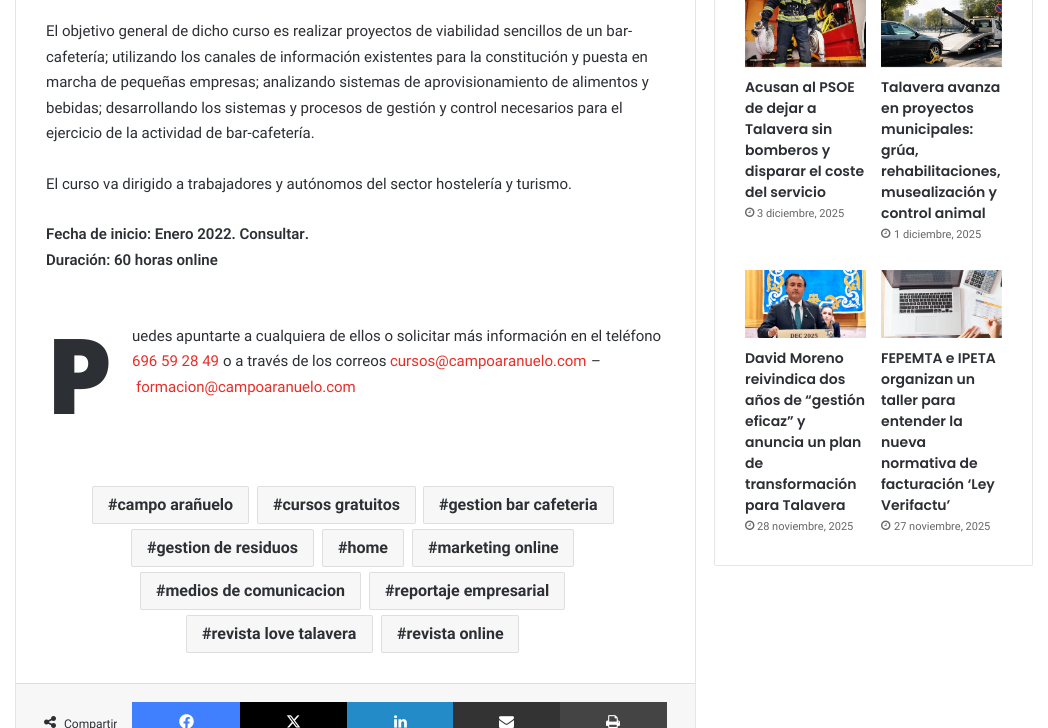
#include <cairo.h>
#include <math.h>
#include <stddef.h>

static cairo_t *c;
static void C(unsigned color){cairo_set_source_rgb(c, (color >> 16) / 255.0, (color >> 8 & 255) / 255.0, (color & 255) / 255.0);}
static void F(const char *family, double size, int italic, int bold){cairo_select_font_face(c, family, italic ? CAIRO_FONT_SLANT_ITALIC : CAIRO_FONT_SLANT_NORMAL,bold ? CAIRO_FONT_WEIGHT_BOLD : CAIRO_FONT_WEIGHT_NORMAL);cairo_set_font_size(c, size);}
static void T(double x, double y, const char *s){cairo_move_to(c, x, y);cairo_show_text(c, s);}
static void R(double x, double y, double w, double h){cairo_rectangle(c, x, y, w, h);cairo_fill(c);}
static void Q(double x, double y, double w, double h, double r){cairo_new_sub_path(c);cairo_arc(c, x + w - r, y + h - r, r, 0, M_PI / 2);cairo_arc(c, x + r, y + h - r, r, M_PI / 2, M_PI);cairo_arc(c, x + r, y + r, r, M_PI, 1.5 * M_PI);cairo_arc(c, x + w - r, y + r, r, 1.5 * M_PI, 2 * M_PI);cairo_close_path(c);}
static void I(const char *path, double x, double y, double w, double h){cairo_surface_t *image = cairo_image_surface_create_from_png(path);cairo_save(c);cairo_set_source_surface(c, image, x, y);cairo_rectangle(c, x, y, w, h);cairo_fill(c);cairo_restore(c);cairo_surface_destroy(image);}
int main(void) {
cairo_surface_t *surface = cairo_image_surface_create(CAIRO_FORMAT_RGB24, 1048, 728);
c = cairo_create(surface);
cairo_font_options_t *options = cairo_font_options_create();
cairo_font_options_set_hint_metrics(options, CAIRO_HINT_METRICS_OFF);
cairo_font_options_set_hint_style(options, CAIRO_HINT_STYLE_NONE);
cairo_set_font_options(c, options);
cairo_set_miter_limit(c, 4);
C(0xffffff);
cairo_paint(c);
cairo_rectangle(c,15.5,-.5,680,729);
C(0xe6e6e6);
cairo_set_line_width(c,1);
cairo_stroke(c);
F("Roboto",15,0,0);
C(0x2c2f34);
T(46,36,"El objetivo general de dicho curso es realizar proyectos de viabilidad sencillos de un bar-");
T(46,62,"cafetería; utilizando los canales de información existentes para la constitución y puesta en");
T(46,87,"marcha de pequeñas empresas; analizando sistemas de aprovisionamiento de alimentos y");
T(46,113,"bebidas; desarrollando los sistemas y procesos de gestión y control necesarios para el");
T(46,138,"ejercicio de la actividad de bar-cafetería.");
T(46,189,"El curso va dirigido a trabajadores y autónomos del sector hostelería y turismo.");
F("Roboto SemiBold",15,0,0);
T(46,239,"Fecha de inicio: Enero 2022. Consultar.");
T(46,265,"Duración: 60 horas online");
F("Roboto",15,0,0);
T(132,341,"uedes apuntarte a cualquiera de ellos o solicitar más información en el teléfono");
F("Noto Sans Black",105,0,0);
T(46,414,"P");
F("Roboto",15,0,0);
C(0xe92e28);
T(132,366,"696 59 28 49");
C(0x2c2f34);
T(223,366,"o a través de los correos");
C(0xe92e28);
T(390,366,"cursos@campoaranuelo.com");
C(0x2c2f34);
T(591,366,"–");
C(0xe92e28);
T(136,392,"formacion@campoaranuelo.com");
C(0xf7f7f7);
Q(92.5,486.5,156,37,1.5);
cairo_fill_preserve(c);
C(0xdedede);
cairo_stroke(c);
F("Roboto",16,0,1);
C(0x2c2f34);
T(108,510,"#campo arañuelo");
C(0xf7f7f7);
Q(257.5,486.5,158,37,1.5);
cairo_fill_preserve(c);
C(0xdedede);
cairo_stroke(c);
C(0x2c2f34);
T(273,510,"#cursos gratuitos");
C(0xf7f7f7);
Q(423.5,486.5,190,37,1.5);
cairo_fill_preserve(c);
C(0xdedede);
cairo_stroke(c);
C(0x2c2f34);
T(439,510,"#gestion bar cafeteria");
C(0xf7f7f7);
Q(131.5,529.5,182,37,1.5);
cairo_fill_preserve(c);
C(0xdedede);
cairo_stroke(c);
C(0x2c2f34);
T(147,553,"#gestion de residuos");
C(0xf7f7f7);
Q(322.5,529.5,81,37,1.5);
cairo_fill_preserve(c);
C(0xdedede);
cairo_stroke(c);
C(0x2c2f34);
T(338,553,"#home");
C(0xf7f7f7);
Q(412.5,529.5,161,37,1.5);
cairo_fill_preserve(c);
C(0xdedede);
cairo_stroke(c);
C(0x2c2f34);
T(428,553,"#marketing online");
C(0xf7f7f7);
Q(140.5,572.5,220,37,1.5);
cairo_fill_preserve(c);
C(0xdedede);
cairo_stroke(c);
C(0x2c2f34);
T(156,596,"#medios de comunicacion");
C(0xf7f7f7);
Q(369.5,572.5,195,37,1.5);
cairo_fill_preserve(c);
C(0xdedede);
cairo_stroke(c);
C(0x2c2f34);
T(385,596,"#reportaje empresarial");
C(0xf7f7f7);
Q(186.5,615.5,186,37,1.5);
cairo_fill_preserve(c);
C(0xdedede);
cairo_stroke(c);
C(0x2c2f34);
T(202,639,"#revista love talavera");
C(0xf7f7f7);
Q(381.5,615.5,137,37,1.5);
cairo_fill_preserve(c);
C(0xdedede);
cairo_stroke(c);
C(0x2c2f34);
T(397,639,"#revista online");
C(0xf7f7f7);
R(16,684,679,44);
C(0xdedede);
R(16,683,679,1);
I("1.png",44,716,12,12);
F("Roboto",12,0,0);
C(0x2c2f34);
T(64,728,"Compartir");
C(0x4080ff);
R(132,702,108,26);
I("2.png",179,714,15,14);
C(0x000000);
R(240,702,107,26);
I("3.png",286,715,15,13);
C(0x238cc8);
R(347,702,106,26);
I("4.png",394,715,13,13);
C(0x333333);
R(453,702,107,26);
I("5.png",499,716,15,12);
C(0x444444);
R(560,702,107,26);
I("6.png",606,715,14,13);
Q(714.5,-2.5,318,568,1.5);
C(0xe6e6e6);
cairo_stroke(c);
I("7.png",745,0,121,68);
F("Poppins SemiBold",14,0,0);
C(0x2c2f34);
T(745,92,"Acusan al PSOE");
T(745,113,"de dejar a");
T(745,134,"Talavera sin");
T(745,155,"bomberos y");
T(745,176,"disparar el coste");
T(745,197,"del servicio");
I("8.png",745,207,10,10);
F("Roboto",11,0,0);
C(0x666666);
T(757,217,"3 diciembre, 2025");
I("9.png",881,0,121,68);
F("Poppins SemiBold",14,0,0);
C(0x2c2f34);
T(881,92,"Talavera avanza");
T(881,113,"en proyectos");
T(881,134,"municipales:");
T(881,155,"grúa,");
T(881,176,"rehabilitaciones,");
T(881,197,"musealización y");
T(881,218,"control animal");
I("8.png",881,228,10,10);
F("Roboto",11,0,0);
C(0x666666);
T(894,238,"1 diciembre, 2025");
I("10.png",745,270,121,68);
F("Poppins SemiBold",14,0,0);
C(0x2c2f34);
T(745,363,"David Moreno");
T(745,384,"reivindica dos");
T(745,405,"años de “gestión");
T(745,426,"eficaz” y");
T(745,447,"anuncia un plan");
T(745,468,"de");
T(745,489,"transformación");
T(745,510,"para Talavera");
I("8.png",745,520,10,10);
F("Roboto",11,0,0);
C(0x666666);
T(757,530,"28 noviembre, 2025");
I("11.png",881,270,121,68);
F("Poppins SemiBold",14,0,0);
C(0x2c2f34);
T(881,363,"FEPEMTA e IPETA");
T(881,384,"organizan un");
T(881,405,"taller para");
T(881,426,"entender la");
T(881,447,"nueva");
T(881,468,"normativa de");
T(881,489,"facturación ‘Ley");
T(881,510,"Verifactu’");
I("8.png",881,520,10,10);
F("Roboto",11,0,0);
C(0x666666);
T(894,530,"27 noviembre, 2025");
cairo_surface_write_to_png(surface, "o.png");
cairo_font_options_destroy(options);
cairo_destroy(c);
cairo_surface_destroy(surface);
return 0;
}
